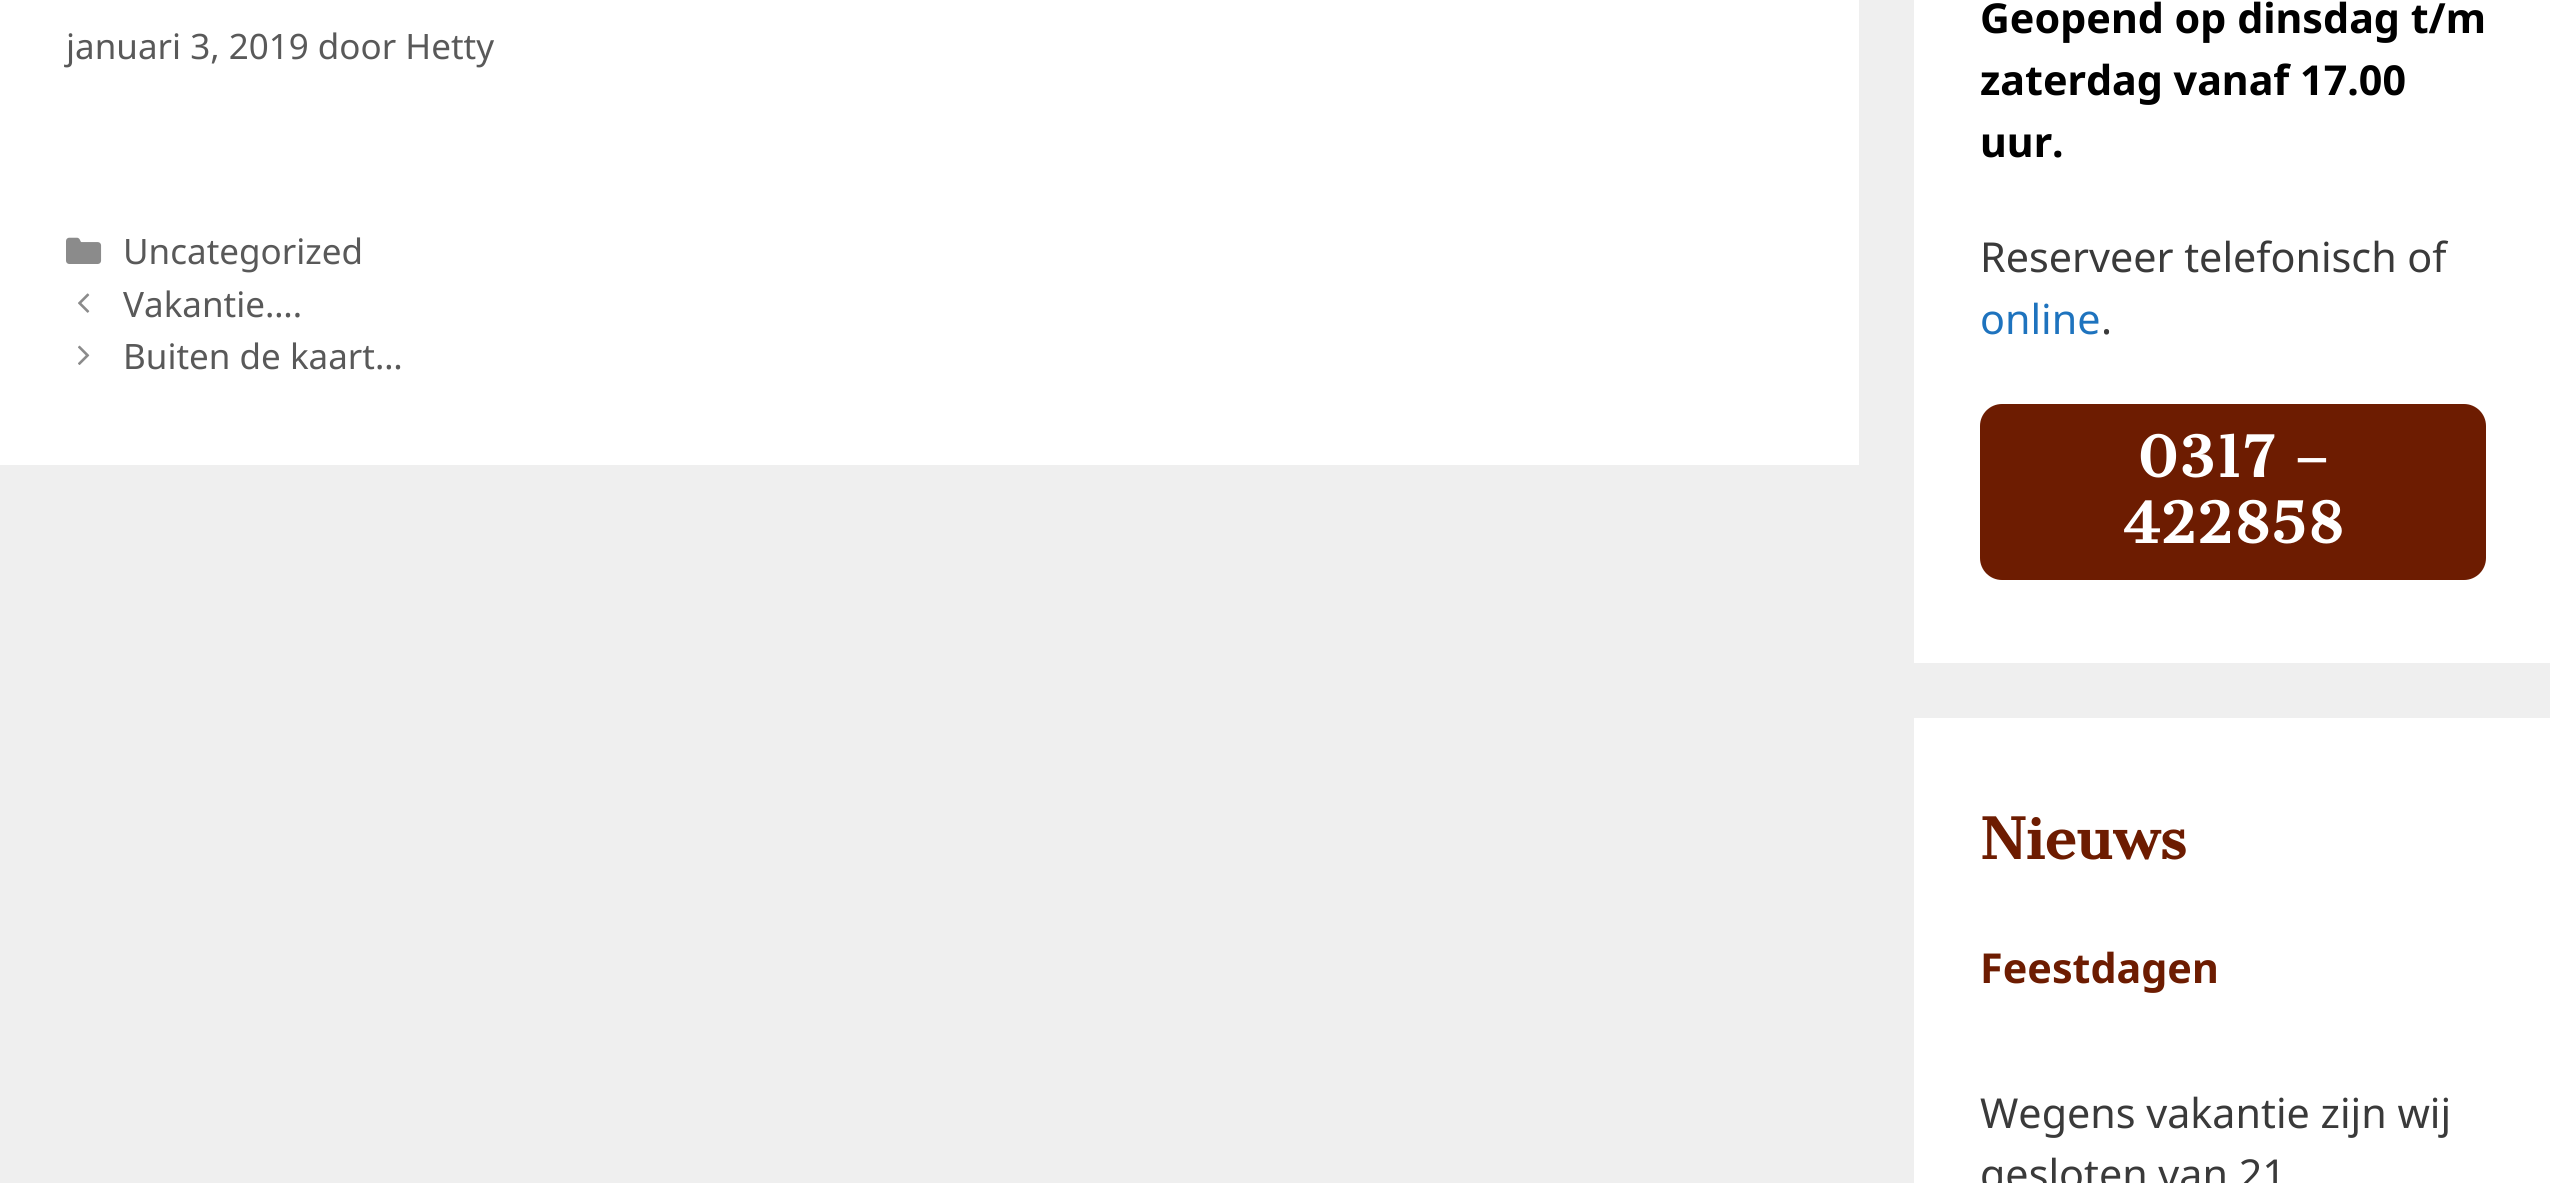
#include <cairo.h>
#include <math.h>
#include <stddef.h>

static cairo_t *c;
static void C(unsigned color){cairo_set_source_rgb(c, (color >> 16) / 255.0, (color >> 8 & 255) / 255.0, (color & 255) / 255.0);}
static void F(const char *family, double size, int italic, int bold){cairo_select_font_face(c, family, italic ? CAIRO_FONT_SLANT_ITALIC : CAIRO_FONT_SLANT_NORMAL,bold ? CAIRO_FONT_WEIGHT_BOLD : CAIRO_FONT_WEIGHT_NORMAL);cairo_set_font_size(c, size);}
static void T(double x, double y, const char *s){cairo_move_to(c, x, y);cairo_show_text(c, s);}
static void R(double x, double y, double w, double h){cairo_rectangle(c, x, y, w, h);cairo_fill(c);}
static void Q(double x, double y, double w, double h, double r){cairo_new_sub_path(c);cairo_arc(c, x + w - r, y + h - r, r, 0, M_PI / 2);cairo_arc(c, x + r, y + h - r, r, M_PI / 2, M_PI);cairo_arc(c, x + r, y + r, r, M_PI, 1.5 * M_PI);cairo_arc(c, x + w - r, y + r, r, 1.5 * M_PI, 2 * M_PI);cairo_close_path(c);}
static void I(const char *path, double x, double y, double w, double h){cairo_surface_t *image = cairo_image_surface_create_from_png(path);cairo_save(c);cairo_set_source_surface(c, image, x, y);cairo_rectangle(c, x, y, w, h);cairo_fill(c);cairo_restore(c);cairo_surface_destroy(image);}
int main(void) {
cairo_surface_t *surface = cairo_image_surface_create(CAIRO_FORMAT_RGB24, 2550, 1183);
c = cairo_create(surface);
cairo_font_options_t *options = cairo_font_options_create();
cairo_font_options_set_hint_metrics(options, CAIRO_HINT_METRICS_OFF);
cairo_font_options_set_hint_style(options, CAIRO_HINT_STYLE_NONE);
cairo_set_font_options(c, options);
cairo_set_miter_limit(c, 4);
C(0xefefef);
cairo_paint(c);
C(0xffffff);
R(0,0,1859,465);
F("Noto Sans",35,0,0);
C(0x595959);
T(66,59,"januari 3, 2019 door Hetty");
I("1.png",66,237,36,27);
T(123,264,"Uncategorized");
I("2.png",78,293,12,20);
T(123,317,"Vakantie….");
I("3.png",78,345,12,20);
T(123,369,"Buiten de kaart…");
C(0xffffff);
R(1914,0,636,663);
F("Noto Sans",41.25,0,1);
C(0x000000);
T(1980,33,"Geopend op dinsdag t/m");
T(1980,95,"zaterdag vanaf 17.00");
T(1980,157,"uur.");
F("Noto Sans",41.25,0,0);
C(0x3a3a3a);
T(1980,272,"Reserveer telefonisch of");
C(0x1e73be);
T(1980,334,"online");
C(0x3a3a3a);
T(2101,334,".");
C(0x6d1c01);
Q(1980,404,506,176,22);
cairo_fill(c);
F("Cantata One",55,0,1);
C(0xffffff);
T(2137,477,"0317 –");
T(2123,543,"422858");
R(1914,718,636,465);
C(0x6d1c01);
T(1980,859,"Nieuws");
F("Noto Sans",41.25,0,1);
T(1980,983,"Feestdagen");
F("Noto Sans",41.25,0,0);
C(0x3a3a3a);
T(1980,1128,"Wegens vakantie zijn wij");
T(1980,1189,"gesloten van 21");
cairo_surface_write_to_png(surface, "o.png");
cairo_font_options_destroy(options);
cairo_destroy(c);
cairo_surface_destroy(surface);
return 0;
}
